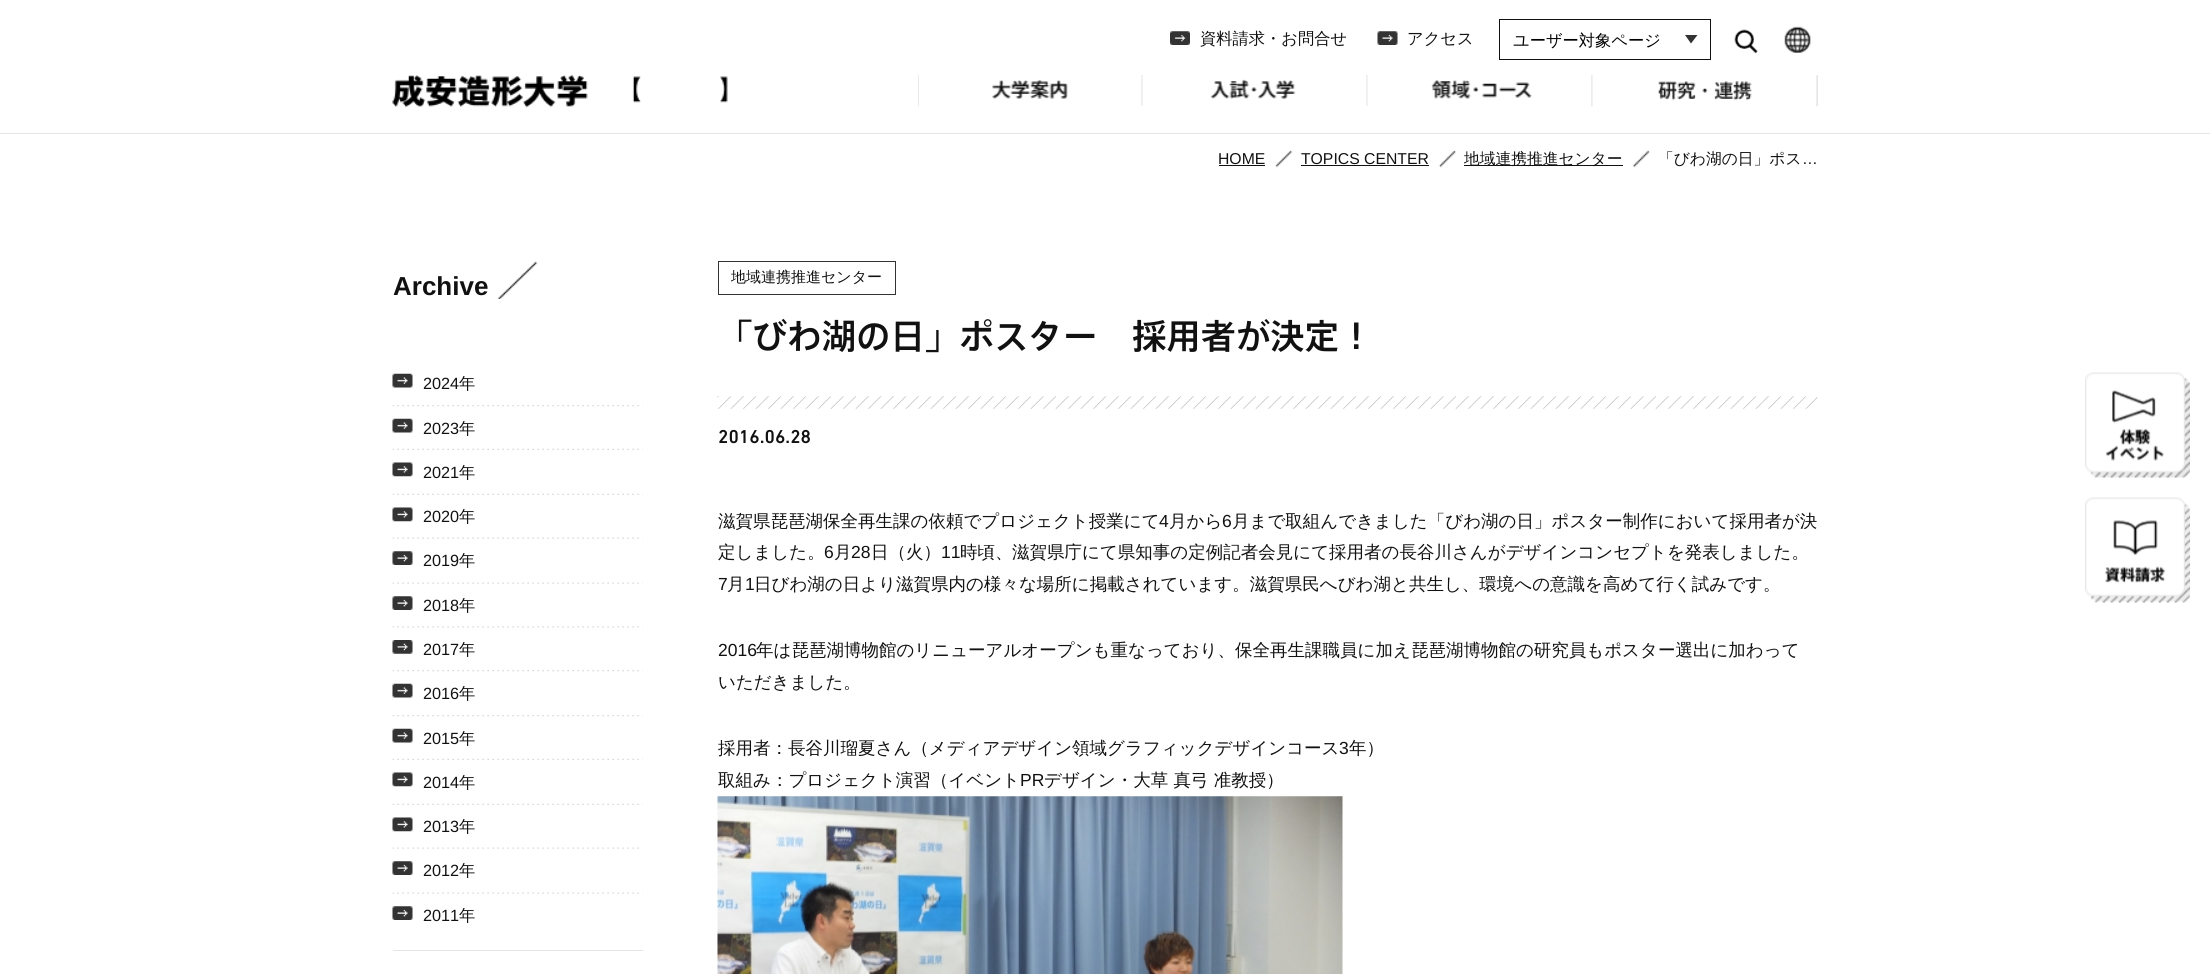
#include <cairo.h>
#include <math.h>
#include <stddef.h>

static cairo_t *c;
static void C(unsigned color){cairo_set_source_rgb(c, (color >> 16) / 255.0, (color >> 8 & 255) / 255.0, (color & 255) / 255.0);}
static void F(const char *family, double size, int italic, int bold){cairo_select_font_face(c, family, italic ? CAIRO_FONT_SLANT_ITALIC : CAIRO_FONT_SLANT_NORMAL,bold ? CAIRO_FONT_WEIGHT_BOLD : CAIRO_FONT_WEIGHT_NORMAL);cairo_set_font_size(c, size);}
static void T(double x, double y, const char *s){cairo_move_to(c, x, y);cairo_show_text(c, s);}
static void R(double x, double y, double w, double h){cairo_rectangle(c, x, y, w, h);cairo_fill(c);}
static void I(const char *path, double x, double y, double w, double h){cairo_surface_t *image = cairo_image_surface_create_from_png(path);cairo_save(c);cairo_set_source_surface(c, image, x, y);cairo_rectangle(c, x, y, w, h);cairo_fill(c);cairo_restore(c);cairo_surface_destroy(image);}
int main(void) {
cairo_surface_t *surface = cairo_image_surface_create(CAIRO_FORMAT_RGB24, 2210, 974);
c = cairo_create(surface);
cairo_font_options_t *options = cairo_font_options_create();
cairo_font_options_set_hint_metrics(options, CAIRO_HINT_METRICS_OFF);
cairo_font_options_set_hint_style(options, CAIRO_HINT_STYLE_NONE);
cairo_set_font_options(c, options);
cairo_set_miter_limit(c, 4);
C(0xffffff);
cairo_paint(c);
C(0xe5e5e5);
R(0,133,2210,1);
I("1.png",1170,31,20,14);
F("WenQuanYi Zen Hei Medium",16.25,0,0);
C(0x111111);
T(1200,44,"資料請求・お問合せ");
I("2.png",1377,31,21,14);
T(1407,44,"アクセス");
C(0x333333);
cairo_new_path(c);
cairo_move_to(c,1691,43.5);
cairo_line_to(c,1697.5,35);
cairo_line_to(c,1685,35);
cairo_close_path(c);
cairo_fill(c);
cairo_rectangle(c,1499.5,19.5,211,40);
C(0x111111);
cairo_set_line_width(c,1);
cairo_stroke(c);
C(0x000000);
T(1513,46,"ユーザー対象ページ");
I("3.png",1734,29,24,25);
I("4.png",1784,26,27,27);
I("5.png",392,75,336,33);
I("6.png",918,75,1,32);
I("7.png",1141,75,2,31);
I("8.png",992,80,76,19);
I("9.png",1366,75,2,31);
I("10.png",1210,79,86,20);
I("11.png",1591,75,2,32);
I("12.png",1431,80,101,19);
I("13.png",1816,75,2,32);
I("14.png",1658,81,94,20);
F("Liberation Sans",15.75,0,0);
C(0x111111);
T(1218,164,"HOME");
R(1219,165,46,1);
I("15.png",1275,150,18,18);
T(1301,164,"TOPICS CENTER");
R(1301,165,128,1);
I("16.png",1438,150,18,18);
R(1464,165,159,1);
F("WenQuanYi Zen Hei Medium",15.75,0,0);
T(1464,164,"地域連携推進センター");
I("17.png",1632,150,18,18);
T(1658,164,"「びわ湖の日」ポス");
F("Liberation Sans",15.75,0,0);
T(1802,164,"…");
I("18.png",497,261,41,38);
F("Liberation Sans",26,0,1);
T(393,295,"Archive");
C(0xe5e5e5);
R(393,950,250,1);
I("19.png",392,405,251,2);
I("20.png",392,373,21,15);
F("Liberation Sans",16.25,0,0);
C(0x111111);
T(423,389,"2024");
F("WenQuanYi Zen Hei Medium",16.25,0,0);
T(459,389,"年");
I("21.png",392,448,251,2);
I("20.png",392,418,21,15);
F("Liberation Sans",16.25,0,0);
T(423,434,"2023");
F("WenQuanYi Zen Hei Medium",16.25,0,0);
T(459,434,"年");
I("21.png",392,493,251,2);
I("22.png",392,462,21,15);
F("Liberation Sans",16.25,0,0);
T(423,478,"2021");
F("WenQuanYi Zen Hei Medium",16.25,0,0);
T(459,478,"年");
I("23.png",392,537,251,2);
I("22.png",392,507,21,15);
F("Liberation Sans",16.25,0,0);
T(423,522,"2020");
F("WenQuanYi Zen Hei Medium",16.25,0,0);
T(459,522,"年");
I("23.png",392,582,251,2);
I("24.png",392,551,21,14);
F("Liberation Sans",16.25,0,0);
T(423,566,"2019");
F("WenQuanYi Zen Hei Medium",16.25,0,0);
T(459,566,"年");
I("25.png",392,626,251,2);
I("24.png",392,596,21,14);
F("Liberation Sans",16.25,0,0);
T(423,611,"2018");
F("WenQuanYi Zen Hei Medium",16.25,0,0);
T(459,611,"年");
I("19.png",392,670,251,2);
I("26.png",392,640,21,14);
F("Liberation Sans",16.25,0,0);
T(423,655,"2017");
F("WenQuanYi Zen Hei Medium",16.25,0,0);
T(459,655,"年");
I("19.png",392,715,251,2);
I("20.png",392,683,21,15);
F("Liberation Sans",16.25,0,0);
T(423,699,"2016");
F("WenQuanYi Zen Hei Medium",16.25,0,0);
T(459,699,"年");
I("21.png",392,758,251,2);
I("20.png",392,728,21,15);
F("Liberation Sans",16.25,0,0);
T(423,744,"2015");
F("WenQuanYi Zen Hei Medium",16.25,0,0);
T(459,744,"年");
I("21.png",392,803,251,2);
I("27.png",392,772,21,15);
F("Liberation Sans",16.25,0,0);
T(423,788,"2014");
F("WenQuanYi Zen Hei Medium",16.25,0,0);
T(459,788,"年");
I("23.png",392,847,251,2);
I("22.png",392,817,21,15);
F("Liberation Sans",16.25,0,0);
T(423,832,"2013");
F("WenQuanYi Zen Hei Medium",16.25,0,0);
T(459,832,"年");
I("23.png",392,892,251,2);
I("24.png",392,861,21,14);
F("Liberation Sans",16.25,0,0);
T(423,876,"2012");
F("WenQuanYi Zen Hei Medium",16.25,0,0);
T(459,876,"年");
I("24.png",392,906,21,14);
F("Liberation Sans",16.25,0,0);
T(423,921,"2011");
F("WenQuanYi Zen Hei Medium",16.25,0,0);
T(459,921,"年");
cairo_rectangle(c,718.5,261.5,177,33);
C(0x333333);
cairo_stroke(c);
F("WenQuanYi Zen Hei Medium",15,0,0);
C(0x111111);
T(731,282,"地域連携推進センター");
I("28.png",717,396,1101,13);
F("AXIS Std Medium",34.5,0,0);
T(718,349,"「びわ湖の日」ポスター　採用者が決定！");
F("DIN Next Medium",19,0,0);
T(718,443,"2016.06.28");
F("WenQuanYi Zen Hei Medium",17.5,0,0);
T(718,527,"滋賀県琵琶湖保全再生課の依頼でプロジェクト授業にて");
F("Liberation Sans",17.5,0,0);
T(1159,527,"4");
F("WenQuanYi Zen Hei Medium",17.5,0,0);
T(1169,527,"月から");
F("Liberation Sans",17.5,0,0);
T(1222,527,"6");
F("WenQuanYi Zen Hei Medium",17.5,0,0);
T(1232,527,"月まで取組んできました「びわ湖の日」ポスター制作において採用者が決");
T(718,558,"定しました。");
F("Liberation Sans",17.5,0,0);
T(824,558,"6");
F("WenQuanYi Zen Hei Medium",17.5,0,0);
T(834,558,"月");
F("Liberation Sans",17.5,0,0);
T(851,558,"28");
F("WenQuanYi Zen Hei Medium",17.5,0,0);
T(871,558,"日（火）");
F("Liberation Sans",17.5,0,0);
T(941,558,"11");
F("WenQuanYi Zen Hei Medium",17.5,0,0);
T(960,558,"時頃、");
T(1012,558,"滋賀県庁にて県知事の定例記者会見にて採用者の長谷川さんがデザインコンセプトを発表しました。");
F("Liberation Sans",17.5,0,0);
T(718,590,"7");
F("WenQuanYi Zen Hei Medium",17.5,0,0);
T(727,590,"月");
F("Liberation Sans",17.5,0,0);
T(745,590,"1");
F("WenQuanYi Zen Hei Medium",17.5,0,0);
T(754,590,"日びわ湖の日より滋賀県内の様々な場所に掲載されています。滋賀県民へびわ湖と共生し、環境への意識を高めて行く試みです。");
F("Liberation Sans",17.5,0,0);
T(718,656,"2016");
F("WenQuanYi Zen Hei Medium",17.5,0,0);
T(756,656,"年は琵琶湖博物館のリニューアルオープンも重なっており、保全再生課職員に加え琵琶湖博物館の研究員もポスター選出に加わって");
T(718,688,"いただきました。");
T(718,754,"採用者：長谷川瑠夏さん（メディアデザイン領域グラフィックデザインコース");
F("Liberation Sans",17.5,0,0);
T(1339,754,"3");
F("WenQuanYi Zen Hei Medium",17.5,0,0);
T(1349,754,"年）");
T(718,786,"取組み：プロジェクト演習（イベント");
F("Liberation Sans",17.5,0,0);
T(1020,786,"PR");
F("WenQuanYi Zen Hei Medium",17.5,0,0);
T(1044,786,"デザイン・大草 真弓 准教授）");
I("29.png",717,796,626,178);
I("30.png",2085,372,105,106);
I("31.png",2085,497,105,106);
cairo_surface_write_to_png(surface, "o.png");
cairo_font_options_destroy(options);
cairo_destroy(c);
cairo_surface_destroy(surface);
return 0;
}
